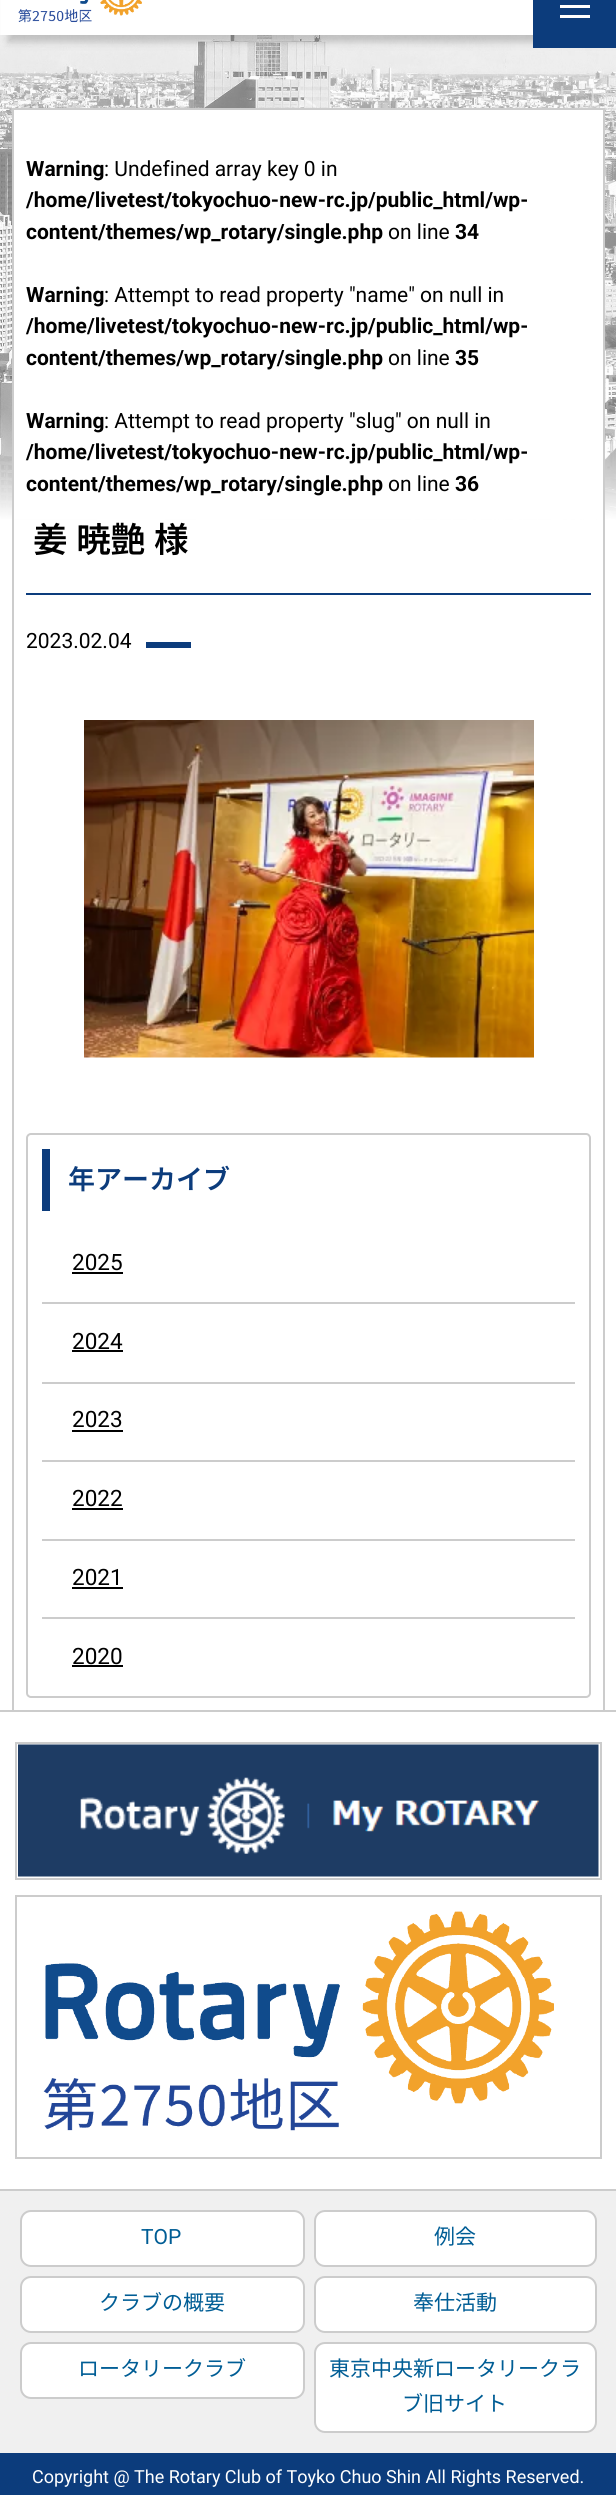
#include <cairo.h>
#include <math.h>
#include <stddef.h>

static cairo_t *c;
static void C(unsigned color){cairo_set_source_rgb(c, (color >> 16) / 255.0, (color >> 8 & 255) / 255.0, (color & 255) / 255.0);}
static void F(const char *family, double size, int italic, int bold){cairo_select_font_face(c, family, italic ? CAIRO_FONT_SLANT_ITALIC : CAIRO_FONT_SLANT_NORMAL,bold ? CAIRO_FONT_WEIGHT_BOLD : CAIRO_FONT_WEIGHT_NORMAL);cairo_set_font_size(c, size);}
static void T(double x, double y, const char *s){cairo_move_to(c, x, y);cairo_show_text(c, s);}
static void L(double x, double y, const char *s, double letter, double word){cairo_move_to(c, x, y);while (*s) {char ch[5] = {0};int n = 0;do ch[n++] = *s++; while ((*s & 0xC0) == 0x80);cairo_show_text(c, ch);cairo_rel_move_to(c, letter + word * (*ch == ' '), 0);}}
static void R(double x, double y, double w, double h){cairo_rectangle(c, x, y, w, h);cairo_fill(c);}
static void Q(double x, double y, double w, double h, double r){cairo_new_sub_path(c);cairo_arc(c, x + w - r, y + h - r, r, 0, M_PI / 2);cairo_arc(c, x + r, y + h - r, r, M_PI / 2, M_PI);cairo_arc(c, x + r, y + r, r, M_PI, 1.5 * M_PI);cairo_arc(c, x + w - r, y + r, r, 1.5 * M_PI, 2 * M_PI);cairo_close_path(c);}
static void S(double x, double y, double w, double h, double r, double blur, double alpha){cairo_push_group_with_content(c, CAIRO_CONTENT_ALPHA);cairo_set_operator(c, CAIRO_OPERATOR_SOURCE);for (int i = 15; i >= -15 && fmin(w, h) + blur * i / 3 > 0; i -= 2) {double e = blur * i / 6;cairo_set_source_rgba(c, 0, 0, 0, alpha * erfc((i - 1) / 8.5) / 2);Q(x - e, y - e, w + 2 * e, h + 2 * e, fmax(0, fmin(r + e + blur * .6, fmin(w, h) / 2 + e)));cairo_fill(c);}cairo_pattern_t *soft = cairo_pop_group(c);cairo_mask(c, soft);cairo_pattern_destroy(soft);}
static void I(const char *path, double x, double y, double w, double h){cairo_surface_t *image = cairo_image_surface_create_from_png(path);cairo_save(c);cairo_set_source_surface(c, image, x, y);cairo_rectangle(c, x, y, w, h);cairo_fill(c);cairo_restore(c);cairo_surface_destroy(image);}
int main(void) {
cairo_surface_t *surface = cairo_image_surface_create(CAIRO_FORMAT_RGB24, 616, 2495);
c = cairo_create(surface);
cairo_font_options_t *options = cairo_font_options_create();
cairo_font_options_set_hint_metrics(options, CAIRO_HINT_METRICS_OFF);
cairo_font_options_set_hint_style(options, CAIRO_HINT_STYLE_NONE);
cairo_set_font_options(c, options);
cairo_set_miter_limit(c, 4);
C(0xffffff);
cairo_paint(c);
I("2.png",0,35,616,598);
C(0x000000);
S(8,-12,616,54,0,4,.2);
C(0xffffff);
R(1,0,532,35);
I("1.png",18,0,124,23);
C(0x0c3c7c);
R(533,0,83,48);
C(0xffffff);
R(560,5,30,3);
R(560,15,30,3);
R(14,110,589,409);
C(0xcccccc);
R(12,108,593,2);
R(603,108,2,1602);
R(12,108,2,1602);
F("Roboto",21,0,1);
C(0x000000);
T(26,176,"Warning");
F("Roboto",21,0,0);
T(104,176,": Undefined array key 0 in");
F("Roboto",21,0,1);
T(26,207,"/home/livetest/tokyochuo-new-rc.jp/public_html/wp-");
T(26,239,"content/themes/wp_rotary/single.php");
F("Roboto",21,0,0);
T(388,239,"on line");
F("Roboto",21,0,1);
T(455,239,"34");
T(26,302,"Warning");
F("Roboto",21,0,0);
T(104,302,": Attempt to read property \"name\" on null in");
F("Roboto",21,0,1);
T(26,333,"/home/livetest/tokyochuo-new-rc.jp/public_html/wp-");
T(26,365,"content/themes/wp_rotary/single.php");
F("Roboto",21,0,0);
T(388,365,"on line");
F("Roboto",21,0,1);
T(455,365,"35");
T(26,428,"Warning");
F("Roboto",21,0,0);
T(104,428,": Attempt to read property \"slug\" on null in");
F("Roboto",21,0,1);
T(26,459,"/home/livetest/tokyochuo-new-rc.jp/public_html/wp-");
T(26,491,"content/themes/wp_rotary/single.php");
F("Roboto",21,0,0);
T(388,491,"on line");
F("Roboto",21,0,1);
T(455,491,"36");
C(0x0c3c7c);
R(26,593,565,2);
F("Noto Sans JP SemiBold",34.5,0,0);
C(0x000000);
L(33,552,"姜 暁艶 様",0,1);
F("Roboto",21,0,0);
T(26,648,"2023.02.04");
C(0x0c3c7c);
R(146,642,45,6);
I("3.png",84,720,450,338);
Q(27,1134,563,563,4);
C(0xcccccc);
cairo_stroke(c);
C(0x0c3c7c);
R(42,1149,8,62);
F("Noto Sans JP SemiBold",27,0,0);
T(68,1189,"年アーカイブ");
C(0xcccccc);
R(42,1302,533,2);
F("Roboto",22.5,0,0);
C(0x000000);
T(72,1270,"2025");
R(72,1272,51,2);
C(0xcccccc);
R(42,1382,533,2);
C(0x000000);
T(72,1349,"2024");
R(72,1350,51,2);
C(0xcccccc);
R(42,1460,533,2);
C(0x000000);
T(72,1427,"2023");
R(72,1430,51,2);
C(0xcccccc);
R(42,1539,533,2);
C(0x000000);
T(72,1506,"2022");
R(72,1508,51,2);
C(0xcccccc);
R(42,1617,533,2);
C(0x000000);
T(72,1585,"2021");
R(72,1587,51,2);
T(72,1664,"2020");
R(72,1665,51,2);
C(0xcccccc);
R(0,1710,616,2);
cairo_rectangle(c,16,1743,585,136);
cairo_stroke(c);
I("4.png",18,1744,581,133);
cairo_rectangle(c,16,1896,585,262);
cairo_stroke(c);
I("5.png",43,1911,511,220);
C(0xf0f0f0);
R(0,2191,616,262);
C(0xcccccc);
R(0,2189,616,2);
C(0xffffff);
Q(21,2211,283,55,10);
cairo_fill_preserve(c);
C(0xcccccc);
cairo_stroke(c);
F("Roboto",21,0,0);
C(0x005d95);
T(141,2244,"TOP");
C(0xffffff);
Q(315,2211,281,55,10);
cairo_fill_preserve(c);
C(0xcccccc);
cairo_stroke(c);
F("Noto Sans JP",21,0,0);
C(0x005d95);
T(434,2244,"例会");
C(0xffffff);
Q(21,2277,283,55,10);
cairo_fill_preserve(c);
C(0xcccccc);
cairo_stroke(c);
C(0x005d95);
T(99,2310,"クラブの概要");
C(0xffffff);
Q(315,2277,281,55,10);
cairo_fill_preserve(c);
C(0xcccccc);
cairo_stroke(c);
C(0x005d95);
T(413,2310,"奉仕活動");
C(0xffffff);
Q(21,2343,283,55,10);
cairo_fill_preserve(c);
C(0xcccccc);
cairo_stroke(c);
C(0x005d95);
T(78,2376,"ロータリークラブ");
C(0xffffff);
Q(315,2343,281,89,10);
cairo_fill_preserve(c);
C(0xcccccc);
cairo_stroke(c);
C(0x005d95);
T(329,2376,"東京中央新ロータリークラ");
T(402,2411,"ブ旧サイト");
C(0x0c3c7c);
R(0,2453,616,42);
F("Roboto",18,0,0);
C(0xffffff);
T(32,2483,"Copyright @ The Rotary Club of Toyko Chuo Shin All Rights Reserved.");
cairo_surface_write_to_png(surface, "o.png");
cairo_font_options_destroy(options);
cairo_destroy(c);
cairo_surface_destroy(surface);
return 0;
}
